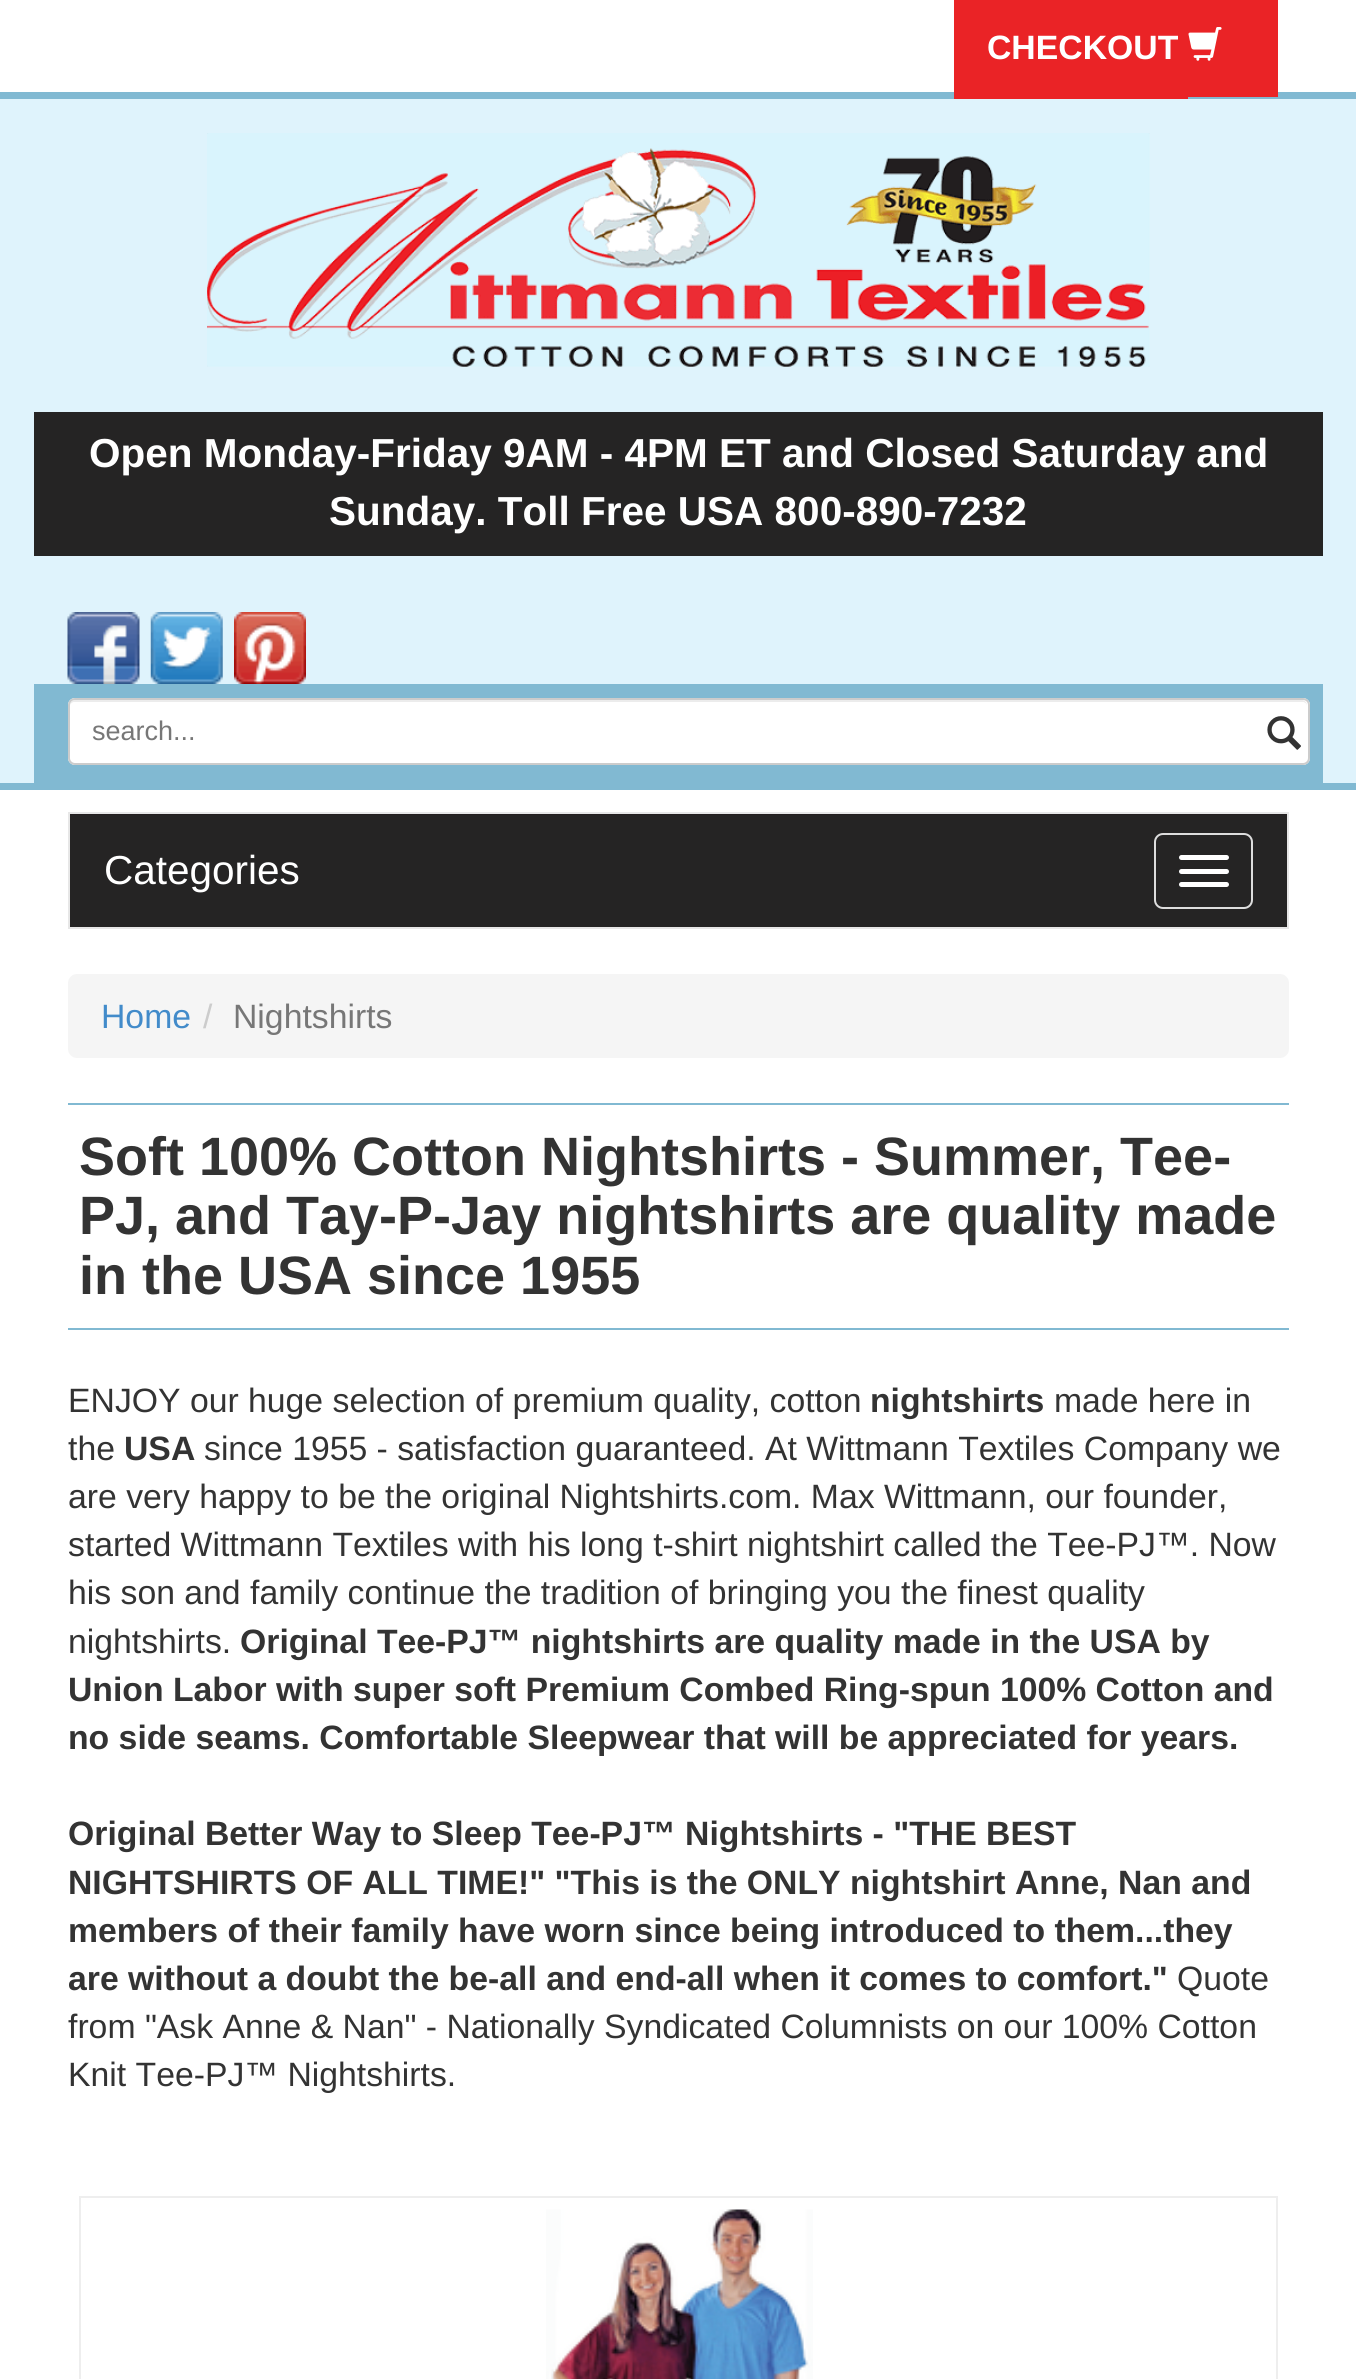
#include <cairo.h>
#include <math.h>
#include <stddef.h>

static cairo_t *c;
static void C(unsigned color){cairo_set_source_rgb(c, (color >> 16) / 255.0, (color >> 8 & 255) / 255.0, (color & 255) / 255.0);}
static void F(const char *family, double size, int italic, int bold){cairo_select_font_face(c, family, italic ? CAIRO_FONT_SLANT_ITALIC : CAIRO_FONT_SLANT_NORMAL,bold ? CAIRO_FONT_WEIGHT_BOLD : CAIRO_FONT_WEIGHT_NORMAL);cairo_set_font_size(c, size);}
static void T(double x, double y, const char *s){cairo_move_to(c, x, y);cairo_show_text(c, s);}
static void R(double x, double y, double w, double h){cairo_rectangle(c, x, y, w, h);cairo_fill(c);}
static void Q(double x, double y, double w, double h, double r){cairo_new_sub_path(c);cairo_arc(c, x + w - r, y + h - r, r, 0, M_PI / 2);cairo_arc(c, x + r, y + h - r, r, M_PI / 2, M_PI);cairo_arc(c, x + r, y + r, r, M_PI, 1.5 * M_PI);cairo_arc(c, x + w - r, y + r, r, 1.5 * M_PI, 2 * M_PI);cairo_close_path(c);}
static void I(const char *path, double x, double y, double w, double h){cairo_surface_t *image = cairo_image_surface_create_from_png(path);cairo_save(c);cairo_set_source_surface(c, image, x, y);cairo_rectangle(c, x, y, w, h);cairo_fill(c);cairo_restore(c);cairo_surface_destroy(image);}
int main(void) {
cairo_surface_t *surface = cairo_image_surface_create(CAIRO_FORMAT_RGB24, 1356, 2379);
c = cairo_create(surface);
cairo_font_options_t *options = cairo_font_options_create();
cairo_font_options_set_hint_metrics(options, CAIRO_HINT_METRICS_OFF);
cairo_font_options_set_hint_style(options, CAIRO_HINT_STYLE_NONE);
cairo_set_font_options(c, options);
cairo_set_miter_limit(c, 4);
C(0xffffff);
cairo_paint(c);
C(0x81b9d2);
R(0,92,1356,7);
C(0xea2326);
R(954,0,234,99);
R(1188,0,90,97);
F("Liberation Sans",33.75,0,1);
C(0xffffff);
T(987,59,"CHECKOUT");
I("1.png",1188,27,34,34);
C(0xdff3fc);
R(0,99,1356,684);
C(0x81b9d2);
R(0,783,1356,7);
I("2.png",207,133,943,234);
C(0x252424);
R(34,412,1289,144);
F("Liberation Sans",40.5,0,1);
C(0xffffff);
T(89,467,"Open Monday-Friday 9AM - 4PM ET and Closed Saturday and");
T(329,525,"Sunday. Toll Free USA 800-890-7232");
I("3.png",67,612,73,72);
I("4.png",150,612,73,72);
I("5.png",234,612,72,72);
C(0x81b9d2);
R(34,684,1289,99);
C(0xffffff);
Q(68,698,1242,67,7);
cairo_fill(c);
C(0xececec);
cairo_new_path(c);
cairo_move_to(c,74,702);
cairo_line_to(c,1303,702);
cairo_curve_to(c,1305,702,1307,704,1307,706);
cairo_curve_to(c,1307,703,1305,700,1302,700);
cairo_line_to(c,75,700);
cairo_curve_to(c,72,700,70,703,70,706);
cairo_curve_to(c,70,704,72,702,74,702);
cairo_close_path(c);
cairo_fill(c);
Q(69,699,1240,65,6);
C(0xcccccc);
cairo_stroke(c);
F("Liberation Sans",27,0,0);
C(0x777777);
T(92,740,"search...");
I("6.png",1267,716,34,34);
C(0x231f20);
R(70,814,1217,1);
cairo_rectangle(c,69,813,1219,115);
C(0xe7e7e7);
cairo_stroke(c);
C(0x252424);
R(70,815,1217,112);
F("Liberation Sans",40.5,0,0);
C(0xffffff);
T(104,884,"Categories");
Q(1155,834,97,74,8);
C(0xdddddd);
cairo_stroke(c);
C(0xffffff);
Q(1179,855,50,5,2.5);
cairo_fill(c);
Q(1179,869,50,5,2.5);
cairo_fill(c);
Q(1179,882,50,5,2.5);
cairo_fill(c);
C(0xf5f5f5);
Q(68,974,1221,84,9);
cairo_fill(c);
F("Liberation Sans",33.75,0,0);
C(0x428bca);
T(101,1028,"Home");
C(0xcccccc);
T(203,1028,"/");
C(0x777777);
T(233,1028,"Nightshirts");
C(0x81b9d2);
R(68,1103,1221,2);
R(68,1328,1221,2);
F("Liberation Sans",54,0,1);
C(0x333333);
T(79,1175,"Soft 100% Cotton Nightshirts - Summer, Tee-");
T(79,1234,"PJ, and Tay-P-Jay nightshirts are quality made");
T(79,1294,"in the USA since 1955");
F("Liberation Sans",33.75,0,0);
T(68,1412,"ENJOY our huge selection of premium quality, cotton");
F("Liberation Sans",33.75,0,1);
T(870,1412,"nightshirts");
F("Liberation Sans",33.75,0,0);
T(1054,1412,"made here in");
T(68,1460,"the");
F("Liberation Sans",33.75,0,1);
T(124,1460,"USA");
F("Liberation Sans",33.75,0,0);
T(204,1460,"since 1955 - satisfaction guaranteed. At Wittmann Textiles Company we");
T(68,1508,"are very happy to be the original Nightshirts.com. Max Wittmann, our founder,");
T(68,1556,"started Wittmann Textiles with his long t-shirt nightshirt called the Tee-PJ™. Now");
T(68,1604,"his son and family continue the tradition of bringing you the finest quality");
T(68,1653,"nightshirts.");
F("Liberation Sans",33.75,0,1);
T(240,1653,"Original Tee-PJ™ nightshirts are quality made in the USA by");
T(68,1701,"Union Labor with super soft Premium Combed Ring-spun 100% Cotton and");
T(68,1749,"no side seams. Comfortable Sleepwear that will be appreciated for years.");
T(68,1845,"Original Better Way to Sleep Tee-PJ™ Nightshirts - \"THE BEST");
T(68,1894,"NIGHTSHIRTS OF ALL TIME!\" \"This is the ONLY nightshirt Anne, Nan and");
T(68,1942,"members of their family have worn since being introduced to them...they");
T(68,1990,"are without a doubt the be-all and end-all when it comes to comfort.\"");
F("Liberation Sans",33.75,0,0);
T(1177,1990,"Quote");
T(68,2038,"from \"Ask Anne & Nan\" - Nationally Syndicated Columnists on our 100% Cotton");
T(68,2086,"Knit Tee-PJ™ Nightshirts.");
cairo_rectangle(c,80,2197,1197,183);
C(0xeeeeee);
cairo_stroke(c);
I("7.png",546,2209,267,170);
cairo_surface_write_to_png(surface, "o.png");
cairo_font_options_destroy(options);
cairo_destroy(c);
cairo_surface_destroy(surface);
return 0;
}
